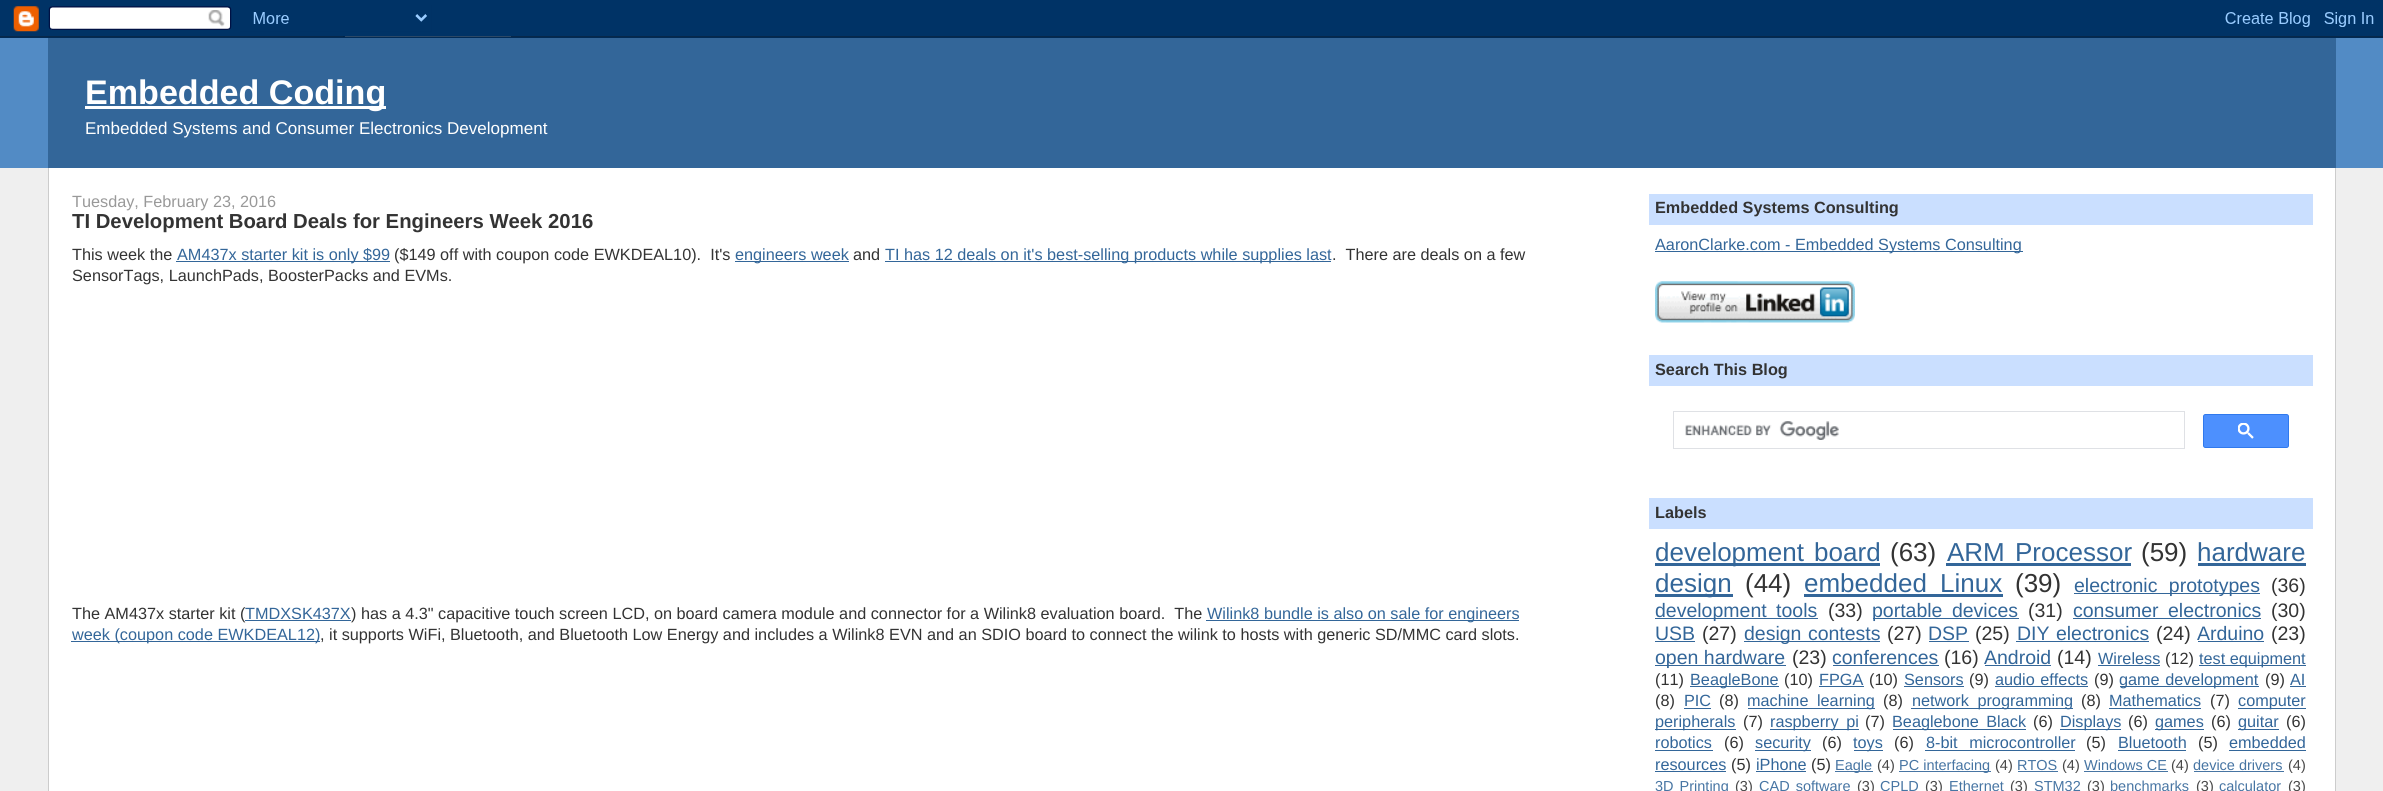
#include <cairo.h>
#include <math.h>
#include <stddef.h>

static cairo_t *c;
static void C(unsigned color){cairo_set_source_rgb(c, (color >> 16) / 255.0, (color >> 8 & 255) / 255.0, (color & 255) / 255.0);}
static void F(const char *family, double size, int italic, int bold){cairo_select_font_face(c, family, italic ? CAIRO_FONT_SLANT_ITALIC : CAIRO_FONT_SLANT_NORMAL,bold ? CAIRO_FONT_WEIGHT_BOLD : CAIRO_FONT_WEIGHT_NORMAL);cairo_set_font_size(c, size);}
static void T(double x, double y, const char *s){cairo_move_to(c, x, y);cairo_show_text(c, s);}
static void L(double x, double y, const char *s, double letter, double word){cairo_move_to(c, x, y);while (*s) {char ch[5] = {0};int n = 0;do ch[n++] = *s++; while ((*s & 0xC0) == 0x80);cairo_show_text(c, ch);cairo_rel_move_to(c, letter + word * (*ch == ' '), 0);}}
static void R(double x, double y, double w, double h){cairo_rectangle(c, x, y, w, h);cairo_fill(c);}
static void Q(double x, double y, double w, double h, double r){cairo_new_sub_path(c);cairo_arc(c, x + w - r, y + h - r, r, 0, M_PI / 2);cairo_arc(c, x + r, y + h - r, r, M_PI / 2, M_PI);cairo_arc(c, x + r, y + r, r, M_PI, 1.5 * M_PI);cairo_arc(c, x + w - r, y + r, r, 1.5 * M_PI, 2 * M_PI);cairo_close_path(c);}
static void I(const char *path, double x, double y, double w, double h){cairo_surface_t *image = cairo_image_surface_create_from_png(path);cairo_save(c);cairo_set_source_surface(c, image, x, y);cairo_rectangle(c, x, y, w, h);cairo_fill(c);cairo_restore(c);cairo_surface_destroy(image);}
int main(void) {
cairo_surface_t *surface = cairo_image_surface_create(CAIRO_FORMAT_RGB24, 2383, 791);
c = cairo_create(surface);
cairo_font_options_t *options = cairo_font_options_create();
cairo_font_options_set_hint_metrics(options, CAIRO_HINT_METRICS_OFF);
cairo_font_options_set_hint_style(options, CAIRO_HINT_STYLE_NONE);
cairo_set_font_options(c, options);
cairo_set_miter_limit(c, 4);
C(0xefefef);
cairo_paint(c);
I("1.png",0,0,2383,38);
C(0x528bc5);
R(0,38,2383,130);
C(0x336699);
R(48,38,2288,130);
C(0xffffff);
R(85,106,301,3);
F("Liberation Sans",34.1,0,1);
T(85,104,"Embedded Coding");
F("Liberation Sans",17.05,0,0);
T(85,134,"Embedded Systems and Consumer Electronics Development");
R(49,168,2286,623);
C(0xcccccc);
R(2335,168,1,623);
R(48,168,1,623);
F("Liberation Sans",16.25,0,0);
C(0x999999);
T(72,207,"Tuesday, February 23, 2016");
F("Liberation Sans",20.3,0,1);
C(0x333333);
T(72,228,"TI Development Board Deals for Engineers Week 2016");
F("Liberation Sans",16.25,0,0);
T(72,260,"This week the");
C(0x336699);
R(176,261,214,1);
T(177,260,"AM437x starter kit is only $99");
C(0x333333);
T(394,260,"($149 off with coupon code EWKDEAL10).  It's");
C(0x336699);
R(735,261,114,1);
T(735,260,"engineers week");
C(0x333333);
T(853,260,"and");
C(0x336699);
R(885,261,446,1);
T(885,260,"TI has 12 deals on it's best-selling products while supplies last");
C(0x333333);
T(1332,260,".  There are deals on a few");
T(72,281,"SensorTags, LaunchPads, BoosterPacks and EVMs.");
T(72,619,"The AM437x starter kit (");
C(0x336699);
T(245,619,"TMDXSK437X");
R(245,620,106,1);
C(0x333333);
T(351,619,") has a 4.3\" capacitive touch screen LCD, on board camera module and connector for a Wilink8 evaluation board.  The");
C(0x336699);
R(1206,620,313,1);
T(1207,619,"Wilink8 bundle is also on sale for engineers");
R(71,641,249,1);
T(72,640,"week (coupon code EWKDEAL12)");
C(0x333333);
T(320,640,", it supports WiFi, Bluetooth, and Bluetooth Low Energy and includes a Wilink8 EVN and an SDIO board to connect the wilink to hosts with generic SD/MMC card slots.");
C(0xcadfff);
R(1649,194,664,31);
F("Liberation Sans",16.25,0,1);
C(0x333333);
T(1655,213,"Embedded Systems Consulting");
C(0x336699);
R(1655,251,368,1);
F("Liberation Sans",16.25,0,0);
T(1655,250,"AaronClarke.com - Embedded Systems Consulting");
I("2.png",1655,281,200,42);
C(0xcadfff);
R(1649,355,664,31);
F("Liberation Sans",16.25,0,1);
C(0x333333);
T(1655,375,"Search This Blog");
cairo_rectangle(c,1673.5,411.5,511,37);
C(0xdfe1e5);
cairo_set_line_width(c,1);
cairo_stroke(c);
I("3.png",1685,421,154,19);
C(0x4d90fe);
Q(2203.5,414.5,85,33,2);
cairo_fill_preserve(c);
C(0x3079ed);
cairo_stroke(c);
I("4.png",2238,423,16,16);
C(0xcadfff);
R(1649,498,664,31);
C(0x333333);
T(1655,518,"Labels");
C(0x336699);
R(1655,563,225,3);
F("Liberation Sans",26,0,0);
L(1655,561,"development board",0,3);
C(0x333333);
T(1890,561,"(63)");
C(0x336699);
L(1947,561,"ARM Processor",0,3);
R(1946,563,185,3);
C(0x333333);
T(2141,561,"(59)");
C(0x336699);
T(2197,561,"hardware");
R(2198,563,108,3);
R(1655,594,78,3);
T(1655,592,"design");
C(0x333333);
T(1745,592,"(44)");
C(0x336699);
L(1804,592,"embedded Linux",0,6);
R(1804,594,199,3);
C(0x333333);
T(2015,592,"(39)");
C(0x336699);
R(2074,593,186,1);
F("Liberation Sans",19.5,0,0);
L(2074,592,"electronic prototypes",0,6);
C(0x333333);
T(2271,592,"(36)");
C(0x336699);
R(1655,618,163,1);
L(1655,617,"development tools",0,4);
C(0x333333);
T(1828,617,"(33)");
C(0x336699);
R(1873,618,146,1);
L(1872,617,"portable devices",0,4);
C(0x333333);
T(2028,617,"(31)");
C(0x336699);
L(2073,617,"consumer electronics",0,4);
R(2073,618,188,1);
C(0x333333);
T(2271,617,"(30)");
C(0x336699);
T(1655,640,"USB");
R(1655,641,40,1);
C(0x333333);
T(1702,640,"(27)");
C(0x336699);
R(1744,641,136,1);
L(1744,640,"design contests",0,1);
C(0x333333);
T(1887,640,"(27)");
C(0x336699);
T(1928,640,"DSP");
R(1929,641,40,1);
C(0x333333);
T(1975,640,"(25)");
C(0x336699);
L(2017,640,"DIY electronics",0,1);
R(2016,641,133,1);
C(0x333333);
T(2156,640,"(24)");
C(0x336699);
T(2197,640,"Arduino");
R(2198,641,66,1);
C(0x333333);
T(2271,640,"(23)");
C(0x336699);
R(1655,665,131,1);
T(1655,664,"open hardware");
C(0x333333);
T(1792,664,"(23)");
C(0x336699);
T(1832,664,"conferences");
R(1833,665,106,1);
C(0x333333);
T(1944,664,"(16)");
C(0x336699);
T(1984,664,"Android");
R(1985,665,66,1);
C(0x333333);
T(2057,664,"(14)");
F("Liberation Sans",16.25,0,0);
C(0x336699);
T(2098,664,"Wireless");
R(2098,665,62,1);
C(0x333333);
T(2165,664,"(12)");
C(0x336699);
R(2199,665,107,1);
T(2199,664,"test equipment");
C(0x333333);
T(1655,685,"(11)");
C(0x336699);
R(1690,686,89,1);
T(1690,685,"BeagleBone");
C(0x333333);
T(1784,685,"(10)");
C(0x336699);
T(1819,685,"FPGA");
R(1819,686,45,1);
C(0x333333);
T(1869,685,"(10)");
C(0x336699);
T(1904,685,"Sensors");
R(1904,686,60,1);
C(0x333333);
T(1969,685,"(9)");
C(0x336699);
L(1995,685,"audio effects",0,1);
R(1995,686,93,1);
C(0x333333);
T(2094,685,"(9)");
C(0x336699);
R(2120,686,139,1);
L(2119,685,"game development",0,1);
C(0x333333);
T(2265,685,"(9)");
C(0x336699);
T(2290,685,"AI");
R(2290,686,16,1);
C(0x333333);
T(1655,706,"(8)");
C(0x336699);
T(1684,706,"PIC");
R(1684,708,27,1);
C(0x333333);
T(1719,706,"(8)");
C(0x336699);
R(1748,708,127,1);
L(1747,706,"machine learning",0,4);
C(0x333333);
T(1883,706,"(8)");
C(0x336699);
R(1911,708,162,1);
L(1912,706,"network programming",0,4);
C(0x333333);
T(2081,706,"(8)");
C(0x336699);
T(2109,706,"Mathematics");
R(2109,708,92,1);
C(0x333333);
T(2210,706,"(7)");
C(0x336699);
R(2238,708,68,1);
T(2238,706,"computer");
R(1655,729,81,1);
T(1655,727,"peripherals");
C(0x333333);
T(1743,727,"(7)");
C(0x336699);
R(1770,729,89,1);
L(1770,727,"raspberry pi",0,3);
C(0x333333);
T(1865,727,"(7)");
C(0x336699);
R(1893,729,133,1);
L(1892,727,"Beaglebone Black",0,3);
C(0x333333);
T(2033,727,"(6)");
C(0x336699);
R(2060,729,61,1);
T(2060,727,"Displays");
C(0x333333);
T(2128,727,"(6)");
C(0x336699);
R(2155,729,49,1);
T(2155,727,"games");
C(0x333333);
T(2211,727,"(6)");
C(0x336699);
R(2238,729,41,1);
T(2238,727,"guitar");
C(0x333333);
T(2286,727,"(6)");
C(0x336699);
T(1655,748,"robotics");
R(1655,750,58,1);
C(0x333333);
T(1724,748,"(6)");
C(0x336699);
R(1755,750,56,1);
T(1755,748,"security");
C(0x333333);
T(1822,748,"(6)");
C(0x336699);
R(1854,750,29,1);
T(1853,748,"toys");
C(0x333333);
T(1894,748,"(6)");
C(0x336699);
L(1926,748,"8-bit microcontroller",0,7);
R(1925,750,150,1);
C(0x333333);
T(2086,748,"(5)");
C(0x336699);
T(2118,748,"Bluetooth");
R(2118,750,68,1);
C(0x333333);
T(2198,748,"(5)");
C(0x336699);
T(2229,748,"embedded");
R(2229,750,77,1);
T(1655,770,"resources");
R(1655,771,71,1);
C(0x333333);
T(1731,770,"(5)");
C(0x336699);
T(1756,770,"iPhone");
R(1756,771,50,1);
C(0x333333);
T(1811,770,"(5)");
C(0x4775a3);
R(1835,771,38,1);
F("Liberation Sans",14.5,0,0);
T(1835,770,"Eagle");
C(0x474747);
T(1877,770,"(4)");
C(0x4775a3);
R(1899,771,92,1);
T(1899,770,"PC interfacing");
C(0x474747);
T(1995,770,"(4)");
C(0x4775a3);
T(2017,770,"RTOS");
R(2018,771,40,1);
C(0x474747);
T(2062,770,"(4)");
C(0x4775a3);
T(2084,770,"Windows CE");
R(2084,771,84,1);
C(0x474747);
T(2171,770,"(4)");
C(0x4775a3);
T(2193,770,"device drivers");
R(2194,771,90,1);
C(0x474747);
T(2288,770,"(4)");
C(0x4775a3);
L(1655,791,"3D Printing",0,2);
C(0x474747);
T(1735,791,"(3)");
C(0x4775a3);
L(1759,791,"CAD software",0,2);
C(0x474747);
T(1857,791,"(3)");
C(0x4775a3);
T(1880,791,"CPLD");
C(0x474747);
T(1925,791,"(3)");
C(0x4775a3);
T(1949,791,"Ethernet");
C(0x474747);
T(2010,791,"(3)");
C(0x4775a3);
T(2034,791,"STM32");
C(0x474747);
T(2087,791,"(3)");
C(0x4775a3);
T(2110,791,"benchmarks");
C(0x474747);
T(2196,791,"(3)");
C(0x4775a3);
T(2219,791,"calculator");
C(0x474747);
T(2288,791,"(3)");
cairo_surface_write_to_png(surface, "o.png");
cairo_font_options_destroy(options);
cairo_destroy(c);
cairo_surface_destroy(surface);
return 0;
}
